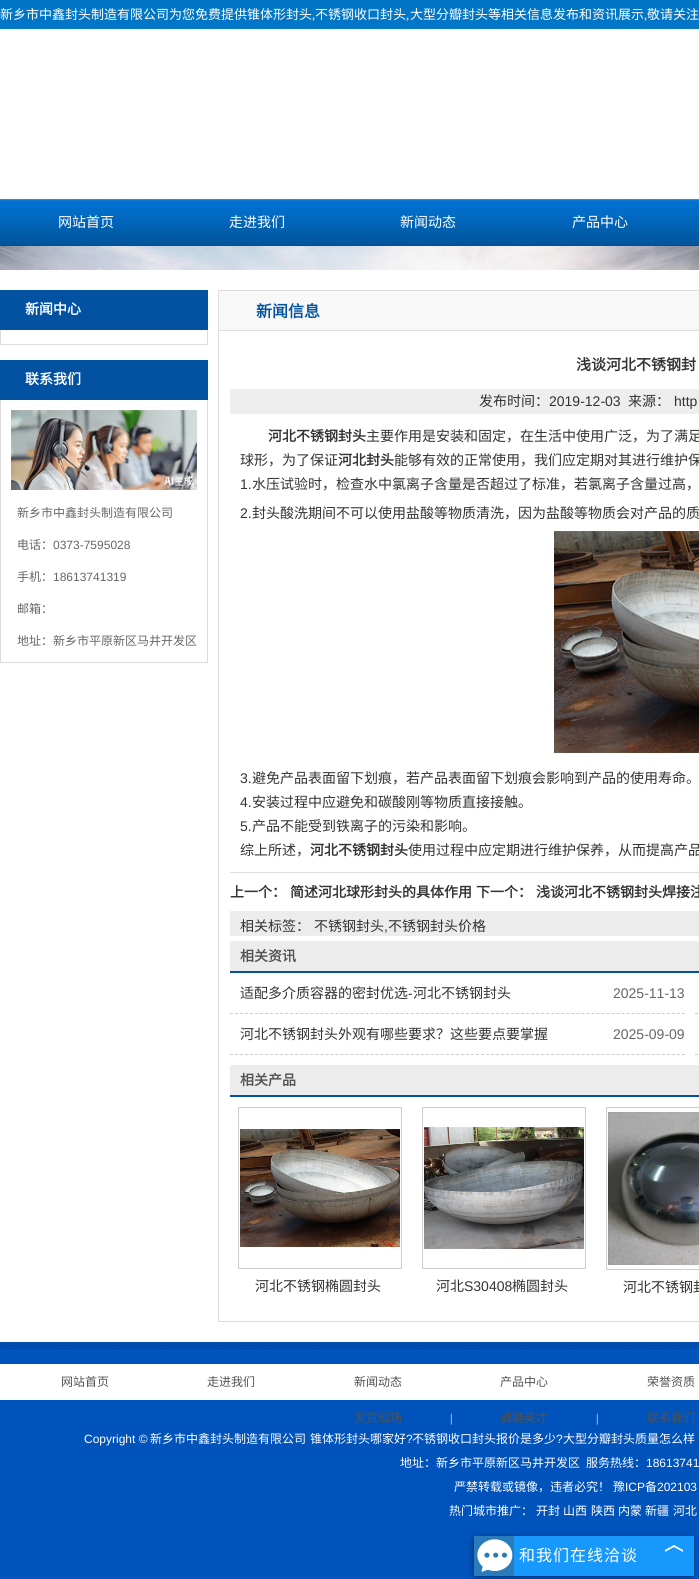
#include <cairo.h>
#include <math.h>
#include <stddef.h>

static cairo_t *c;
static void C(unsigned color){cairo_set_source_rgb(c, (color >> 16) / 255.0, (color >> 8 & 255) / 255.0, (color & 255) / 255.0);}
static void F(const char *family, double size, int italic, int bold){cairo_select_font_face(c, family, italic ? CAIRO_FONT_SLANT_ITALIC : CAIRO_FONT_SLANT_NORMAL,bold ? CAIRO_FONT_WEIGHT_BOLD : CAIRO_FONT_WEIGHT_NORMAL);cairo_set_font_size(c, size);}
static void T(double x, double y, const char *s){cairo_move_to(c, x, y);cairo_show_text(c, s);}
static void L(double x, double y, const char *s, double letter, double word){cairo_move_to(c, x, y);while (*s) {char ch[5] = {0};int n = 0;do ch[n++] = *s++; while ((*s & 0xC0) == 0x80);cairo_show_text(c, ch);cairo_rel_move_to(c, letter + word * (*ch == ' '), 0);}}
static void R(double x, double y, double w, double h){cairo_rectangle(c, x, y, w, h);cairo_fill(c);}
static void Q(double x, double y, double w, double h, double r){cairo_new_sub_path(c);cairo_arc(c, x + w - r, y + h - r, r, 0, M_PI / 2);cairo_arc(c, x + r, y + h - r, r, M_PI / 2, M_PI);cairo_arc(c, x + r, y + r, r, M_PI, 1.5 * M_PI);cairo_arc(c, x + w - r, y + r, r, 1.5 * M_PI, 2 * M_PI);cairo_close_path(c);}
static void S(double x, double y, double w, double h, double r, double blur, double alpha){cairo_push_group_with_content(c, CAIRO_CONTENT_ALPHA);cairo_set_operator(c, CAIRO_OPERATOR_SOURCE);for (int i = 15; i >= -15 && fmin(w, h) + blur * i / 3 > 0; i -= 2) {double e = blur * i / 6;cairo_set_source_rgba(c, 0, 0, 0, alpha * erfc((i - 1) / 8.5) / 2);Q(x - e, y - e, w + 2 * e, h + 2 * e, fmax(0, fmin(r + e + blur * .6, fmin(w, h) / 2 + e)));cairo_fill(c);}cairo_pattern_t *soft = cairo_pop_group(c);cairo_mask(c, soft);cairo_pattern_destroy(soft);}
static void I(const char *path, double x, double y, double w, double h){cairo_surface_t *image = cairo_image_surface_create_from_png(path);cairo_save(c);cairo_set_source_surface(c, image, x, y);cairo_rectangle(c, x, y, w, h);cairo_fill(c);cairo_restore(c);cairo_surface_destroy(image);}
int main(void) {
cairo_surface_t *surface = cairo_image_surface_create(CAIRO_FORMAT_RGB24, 699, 1579);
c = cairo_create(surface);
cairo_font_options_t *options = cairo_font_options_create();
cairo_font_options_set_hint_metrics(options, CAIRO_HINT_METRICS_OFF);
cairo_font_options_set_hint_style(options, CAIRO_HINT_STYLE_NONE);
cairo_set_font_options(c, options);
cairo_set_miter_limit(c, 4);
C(0xffffff);
cairo_paint(c);
I("1.png",0,0,699,246);
F("Noto Sans CJK SC",13,0,0);
C(0xffffff);
T(0,19,"新乡市中鑫封头制造有限公司为您免费提供锥体形封头");
F("Liberation Serif",13,0,0);
T(312,19,",");
F("Noto Sans CJK SC",13,0,0);
T(315,19,"不锈钢收口封头");
F("Liberation Serif",13,0,0);
T(406,19,",");
F("Noto Sans CJK SC",13,0,0);
T(410,19,"大型分瓣封头等相关信息发布和资讯展示");
F("Liberation Serif",13,0,0);
T(644,19,",");
F("Noto Sans CJK SC",13,0,0);
T(647,19,"敬请关注");
F("Noto Sans CJK SC",14,0,0);
T(58,227,"网站首页");
T(229,227,"走进我们");
T(400,227,"新闻动态");
T(572,227,"产品中心");
I("2.png",0,246,699,24);
C(0x0352a1);
R(0,290,208,40);
F("Noto Sans CJK SC",14,0,1);
C(0xffffff);
T(25,314,"新闻中心");
C(0xdcdcdc);
R(207,330,1,15);
R(0,344,208,1);
R(0,330,1,15);
C(0x0352a1);
R(0,360,208,40);
C(0xffffff);
T(25,384,"联系我们");
C(0xdcdcdc);
R(207,400,1,263);
R(0,662,208,1);
R(0,400,1,263);
I("3.png",11,410,186,80);
F("Noto Sans CJK SC",12,0,0);
C(0x666666);
T(17,517,"新乡市中鑫封头制造有限公司");
T(17,549,"电话：");
F("Liberation Sans",12,0,0);
T(53,549,"0373-7595028");
F("Noto Sans CJK SC",12,0,0);
T(17,581,"手机：");
F("Liberation Sans",12,0,0);
T(53,581,"18613741319");
F("Noto Sans CJK SC",12,0,0);
T(17,613,"邮箱：");
T(17,645,"地址：新乡市平原新区马井开发区");
C(0xf8f8f8);
cairo_rectangle(c,218.5,290.5,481,40);
cairo_fill_preserve(c);
C(0xdddddd);
cairo_set_line_width(c,1);
cairo_stroke(c);
F("Noto Sans CJK SC",16,0,1);
C(0x0352a1);
T(256,317,"新闻信息");
C(0xdcdcdc);
R(218,1321,481,1);
R(218,331,1,991);
F("Noto Sans CJK SC",15,0,1);
C(0x333333);
T(576,370,"浅谈河北不锈钢封");
C(0xeeeeee);
R(230,389,469,25);
F("Noto Sans CJK SC",14,0,0);
C(0x333333);
T(479,406,"发布时间：");
F("Liberation Sans",14,0,0);
T(549,406,"2019-12-03");
F("Noto Sans CJK SC",14,0,0);
T(628,406,"来源：");
F("Liberation Sans",14,0,0);
T(674,406,"http");
C(0xdedede);
R(230,872,469,1);
F("Noto Sans CJK SC",14,0,1);
C(0x333333);
T(268,441,"河北不锈钢封头");
F("Noto Sans CJK SC",14,0,0);
T(366,441,"主要作用是安装和固定，在生活中使用广泛，为了满足");
T(240,465,"球形，为了保证");
F("Noto Sans CJK SC",14,0,1);
T(338,465,"河北封头");
F("Noto Sans CJK SC",14,0,0);
T(394,465,"能够有效的正常使用，我们应定期对其进行维护保");
F("Liberation Sans",14,0,0);
T(240,489,"1.");
F("Noto Sans CJK SC",14,0,0);
T(252,489,"水压试验时，检查水中氯离子含量是否超过了标准，若氯离子含量过高，");
F("Liberation Sans",14,0,0);
T(240,518,"2.");
F("Noto Sans CJK SC",14,0,0);
T(252,518,"封头酸洗期间不可以使用盐酸等物质清洗，因为盐酸等物质会对产品的质");
I("4.png",554,531,145,222);
F("Liberation Sans",14,0,0);
T(240,783,"3.");
F("Noto Sans CJK SC",14,0,0);
T(252,783,"避免产品表面留下划痕，若产品表面留下划痕会影响到产品的使用寿命。");
F("Liberation Sans",14,0,0);
T(240,807,"4.");
F("Noto Sans CJK SC",14,0,0);
T(252,807,"安装过程中应避免和碳酸刚等物质直接接触。");
F("Liberation Sans",14,0,0);
T(240,831,"5.");
F("Noto Sans CJK SC",14,0,0);
T(252,831,"产品不能受到铁离子的污染和影响。");
T(240,855,"综上所述，");
F("Noto Sans CJK SC",14,0,1);
T(310,855,"河北不锈钢封头");
F("Noto Sans CJK SC",14,0,0);
T(408,855,"使用过程中应定期进行维护保养，从而提高产品");
F("Noto Sans CJK SC",14,0,1);
T(230,897,"上一个：");
T(290,897,"简述河北球形封头的具体作用");
T(476,897,"下一个：");
T(536,897,"浅谈河北不锈钢封头焊接注");
C(0xececec);
R(230,911,469,25);
F("Noto Sans CJK SC",14,0,0);
C(0x333333);
T(240,931,"相关标签：");
T(314,931,"不锈钢封头");
F("Liberation Sans",14,0,0);
T(384,931,",");
F("Noto Sans CJK SC",14,0,0);
T(388,931,"不锈钢封头价格");
C(0xececec);
R(230,941,469,30);
C(0x0352a1);
R(230,971,469,2);
F("Noto Sans CJK SC",14,0,1);
C(0x525252);
T(240,961,"相关资讯");
cairo_new_path(c);
cairo_move_to(c,230,1013.5);
cairo_line_to(c,685,1013.5);
C(0xcccccc);
cairo_set_dash(c,(double[]){3,2.02},2,0);
cairo_stroke(c);
F("Noto Sans CJK SC",14,0,0);
C(0x333333);
T(240,998,"适配多介质容器的密封优选");
F("Liberation Sans",14,0,0);
T(408,998,"-");
F("Noto Sans CJK SC",14,0,0);
T(413,998,"河北不锈钢封头");
F("Liberation Sans",14,0,0);
C(0x666666);
T(613,998,"2025-11-13");
cairo_new_path(c);
cairo_move_to(c,695,1013.5);
cairo_line_to(c,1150,1013.5);
C(0xcccccc);
cairo_stroke(c);
cairo_new_path(c);
cairo_move_to(c,230,1054.5);
cairo_line_to(c,685,1054.5);
cairo_stroke(c);
F("Noto Sans CJK SC",14,0,0);
C(0x333333);
T(240,1039,"河北不锈钢封头外观有哪些要求？这些要点要掌握");
F("Liberation Sans",14,0,0);
C(0x666666);
T(613,1039,"2025-09-09");
cairo_new_path(c);
cairo_move_to(c,695,1054.5);
cairo_line_to(c,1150,1054.5);
C(0xcccccc);
cairo_stroke(c);
C(0xececec);
R(230,1065,469,30);
C(0x0352a1);
R(230,1095,469,2);
F("Noto Sans CJK SC",14,0,1);
C(0x525252);
T(240,1085,"相关产品");
cairo_rectangle(c,238.5,1107.5,163,161);
C(0xcccccc);
cairo_set_dash(c,NULL,0,0);
cairo_stroke(c);
I("5.png",240,1129,160,118);
F("Noto Sans CJK SC",14,0,0);
C(0x333333);
T(255,1291,"河北不锈钢椭圆封头");
cairo_rectangle(c,422.5,1107.5,163,161);
C(0xcccccc);
cairo_stroke(c);
I("6.png",424,1127,160,122);
C(0x333333);
T(436,1291,"河北");
F("Liberation Sans",14,0,0);
T(464,1291,"S30408");
F("Noto Sans CJK SC",14,0,0);
T(512,1291,"椭圆封头");
cairo_rectangle(c,606.5,1107.5,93,162);
C(0xcccccc);
cairo_stroke(c);
I("7.png",608,1112,91,153);
C(0x333333);
T(623,1292,"河北不锈钢封");
I("8.png",0,1342,699,237);
C(0xffffff);
R(0,1364,699,36);
F("Noto Sans CJK SC",12,0,0);
C(0x525252);
T(61,1386,"网站首页");
T(207,1386,"走进我们");
T(354,1386,"新闻动态");
T(500,1386,"产品中心");
T(647,1386,"荣誉资质");
T(354,1422,"发货现场");
F("Liberation Serif",12,0,0);
C(0xffffff);
T(450,1422,"|");
F("Noto Sans CJK SC",12,0,0);
C(0x525252);
T(500,1422,"诚聘英才");
F("Liberation Serif",12,0,0);
C(0xffffff);
T(596,1422,"|");
F("Noto Sans CJK SC",12,0,0);
C(0x525252);
T(647,1422,"联系我们");
F("Liberation Sans",12,0,0);
C(0xffffff);
T(84,1443,"Copyright ©");
F("Noto Sans CJK SC",12,0,0);
T(150,1443,"新乡市中鑫封头制造有限公司");
T(310,1443,"锥体形封头哪家好");
F("Liberation Sans",12,0,0);
T(406,1443,"?");
F("Noto Sans CJK SC",12,0,0);
T(412,1443,"不锈钢收口封头报价是多少");
F("Liberation Sans",12,0,0);
T(556,1443,"?");
F("Noto Sans CJK SC",12,0,0);
T(563,1443,"大型分瓣封头质量怎么样");
T(400,1467,"地址：新乡市平原新区马井开发区");
T(586,1467,"服务热线：");
F("Liberation Sans",12,0,0);
T(646,1467,"18613741");
F("Noto Sans CJK SC",12,0,0);
T(454,1491,"严禁转载或镜像，违者必究！");
T(613,1491,"豫");
F("Liberation Sans",12,0,0);
T(625,1491,"ICP");
F("Noto Sans CJK SC",12,0,0);
T(645,1491,"备");
F("Liberation Sans",12,0,0);
T(657,1491,"202103");
F("Noto Sans CJK SC",12,0,0);
T(449,1515,"热门城市推广：");
T(536,1515,"开封");
T(563,1515,"山西");
T(591,1515,"陕西");
T(618,1515,"内蒙");
T(645,1515,"新疆");
T(673,1515,"河北");
C(0x000000);
S(473,1537,220,40,4,2.5,.4);
C(0x1798fc);
R(514,1536,180,40);
C(0x2a7bb9);
R(474,1536,40,40);
I("9.png",477,1539,36,33);
F("Noto Sans CJK SC",16,0,0);
C(0xffffff);
L(519,1561,"和我们在线洽谈",1,0);
I("10.png",665,1545,18,7);
cairo_surface_write_to_png(surface, "o.png");
cairo_font_options_destroy(options);
cairo_destroy(c);
cairo_surface_destroy(surface);
return 0;
}
